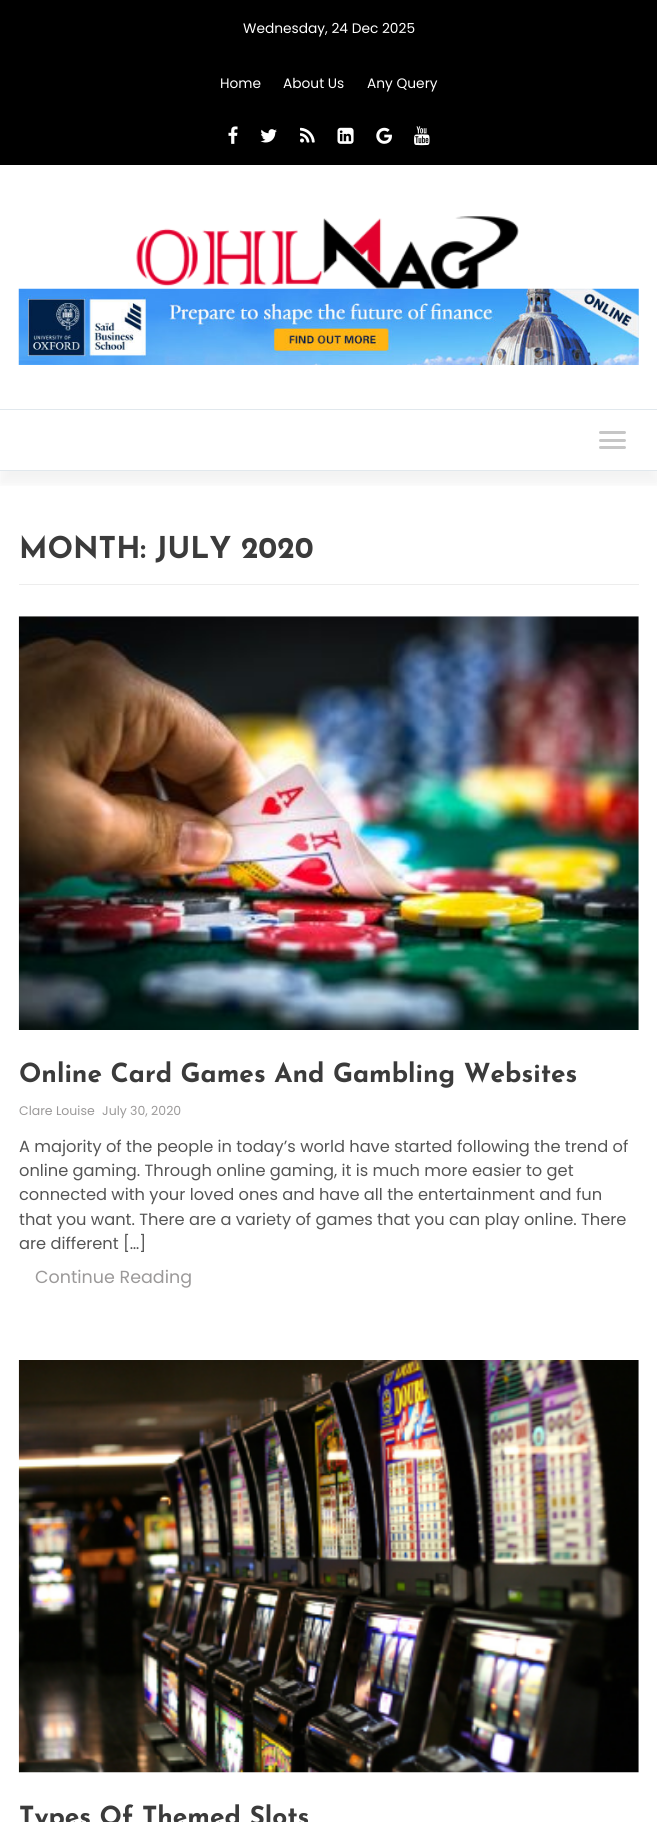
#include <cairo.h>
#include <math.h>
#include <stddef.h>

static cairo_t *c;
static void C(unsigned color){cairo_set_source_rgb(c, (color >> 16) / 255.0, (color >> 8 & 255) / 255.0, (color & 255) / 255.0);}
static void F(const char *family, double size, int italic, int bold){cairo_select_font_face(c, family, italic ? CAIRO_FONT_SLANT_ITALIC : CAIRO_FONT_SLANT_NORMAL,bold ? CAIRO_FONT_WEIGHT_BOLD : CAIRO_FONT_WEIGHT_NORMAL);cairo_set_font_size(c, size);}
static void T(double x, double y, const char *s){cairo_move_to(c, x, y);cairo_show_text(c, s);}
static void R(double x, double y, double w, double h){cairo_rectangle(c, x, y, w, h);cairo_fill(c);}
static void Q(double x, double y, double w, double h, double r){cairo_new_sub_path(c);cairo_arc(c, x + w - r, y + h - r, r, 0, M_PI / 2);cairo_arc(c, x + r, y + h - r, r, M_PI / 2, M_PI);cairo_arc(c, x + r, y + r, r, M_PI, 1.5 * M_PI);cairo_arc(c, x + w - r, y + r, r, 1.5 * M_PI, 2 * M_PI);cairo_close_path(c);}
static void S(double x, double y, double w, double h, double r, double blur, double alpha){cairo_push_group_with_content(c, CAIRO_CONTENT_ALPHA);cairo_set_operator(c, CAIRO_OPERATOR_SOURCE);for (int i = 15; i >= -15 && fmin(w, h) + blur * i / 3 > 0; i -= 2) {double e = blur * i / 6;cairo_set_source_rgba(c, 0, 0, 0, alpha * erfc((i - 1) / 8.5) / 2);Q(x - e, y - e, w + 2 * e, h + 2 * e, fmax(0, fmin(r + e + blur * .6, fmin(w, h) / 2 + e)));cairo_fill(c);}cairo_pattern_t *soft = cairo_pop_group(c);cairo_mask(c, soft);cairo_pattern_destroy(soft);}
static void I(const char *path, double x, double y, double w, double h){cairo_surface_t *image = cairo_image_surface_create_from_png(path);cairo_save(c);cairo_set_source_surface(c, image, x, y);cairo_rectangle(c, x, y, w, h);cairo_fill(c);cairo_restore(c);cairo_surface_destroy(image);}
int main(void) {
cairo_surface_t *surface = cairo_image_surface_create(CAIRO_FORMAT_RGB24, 657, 1822);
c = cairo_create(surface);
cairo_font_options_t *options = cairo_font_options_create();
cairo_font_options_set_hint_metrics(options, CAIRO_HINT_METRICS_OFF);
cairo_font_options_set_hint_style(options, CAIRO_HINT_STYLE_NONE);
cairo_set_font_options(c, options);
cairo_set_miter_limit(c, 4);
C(0xffffff);
cairo_paint(c);
C(0x000000);
R(0,0,657,165);
F("Poppins",13.75,0,0);
C(0xffffff);
T(243,33,"Wednesday, 24 Dec 2025");
T(220,88,"Home");
T(283,88,"About Us");
T(367,88,"Any Query");
I("1.png",228,126,10,18);
I("2.png",260,129,17,14);
I("3.png",300,127,15,16);
I("4.png",337,127,17,17);
I("5.png",376,127,16,17);
I("6.png",414,126,16,20);
I("7.png",136,216,383,73);
I("8.png",18,288,621,77);
cairo_save(c);
cairo_rectangle(c,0,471,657,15);
cairo_clip(c);
C(0x000000);
S(0,421,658,63,0,6,.05);
cairo_restore(c);
C(0xe1e8ed);
R(0,409,657,1);
R(0,470,657,1);
C(0xc6c6c6);
Q(599,431,27,3,1.5);
cairo_fill(c);
Q(599,439,27,3,1.5);
cairo_fill(c);
Q(599,446,27,3,1.5);
cairo_fill(c);
C(0xededed);
R(19,584,620,1);
F("Josefin Sans",30,0,1);
C(0x3b3b3b);
T(19,558,"MONTH: JULY 2020");
I("9.png",18,616,621,414);
F("Josefin Sans",26.25,0,1);
T(19,1082,"Online Card Games And Gambling Websites");
F("Poppins",12.5,0,0);
C(0x9b9999);
T(19,1115,"Clare Louise");
T(102,1115,"July 30, 2020");
F("Poppins",16.25,0,0);
C(0x555555);
T(19,1152,"A majority of the people in today’s world have started following the trend of");
T(19,1176,"online gaming. Through online gaming, it is much more easier to get");
T(19,1200,"connected with your loved ones and have all the entertainment and fun");
T(19,1225,"that you want. There are a variety of games that you can play online. There");
T(19,1249,"are different […]");
F("Poppins",17.5,0,0);
C(0x9b9999);
T(35,1283,"Continue Reading");
I("10.png",18,1360,621,413);
F("Josefin Sans",26.25,0,1);
C(0x3b3b3b);
T(19,1825,"Types Of Themed Slots");
cairo_surface_write_to_png(surface, "o.png");
cairo_font_options_destroy(options);
cairo_destroy(c);
cairo_surface_destroy(surface);
return 0;
}
